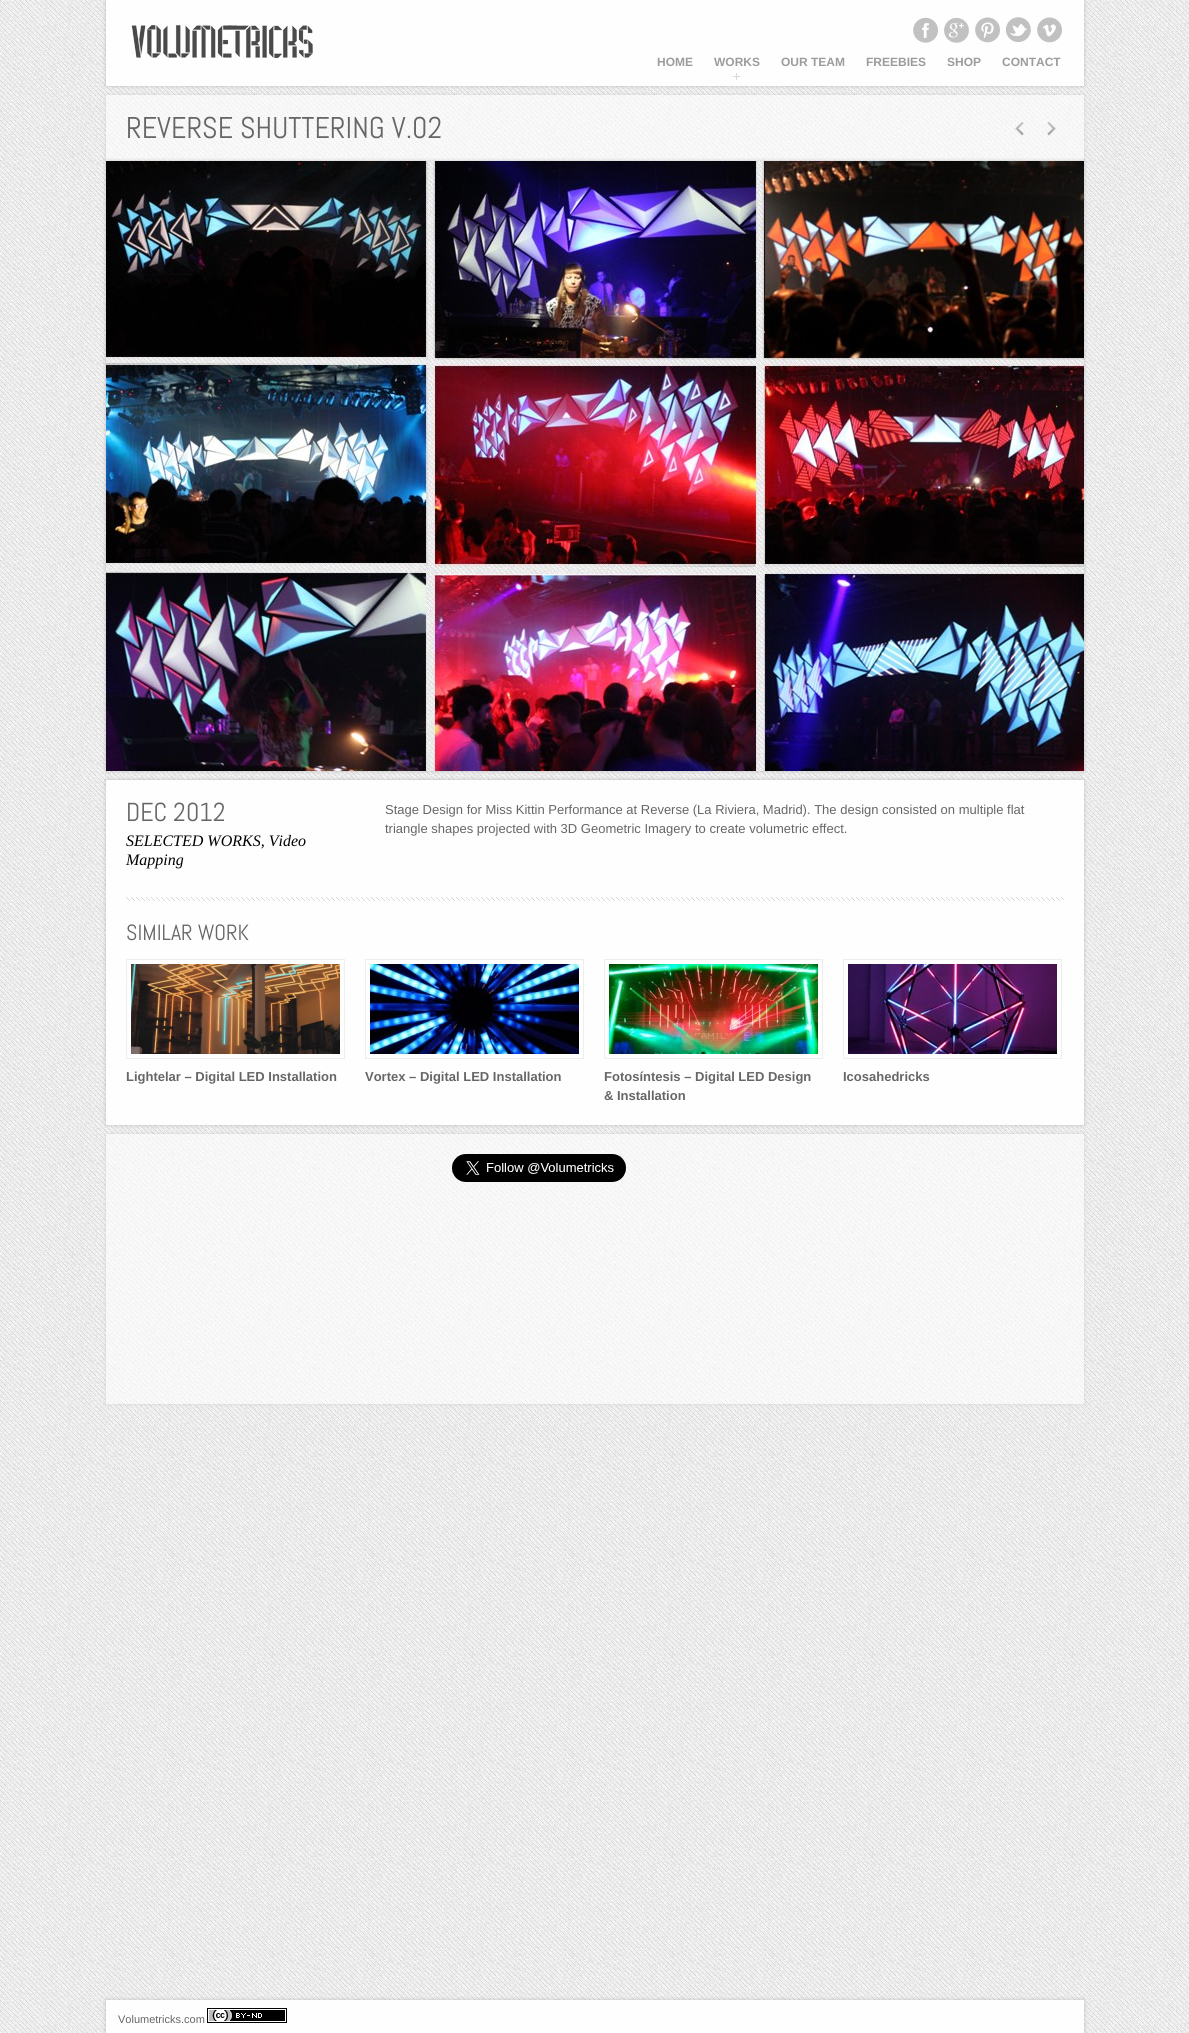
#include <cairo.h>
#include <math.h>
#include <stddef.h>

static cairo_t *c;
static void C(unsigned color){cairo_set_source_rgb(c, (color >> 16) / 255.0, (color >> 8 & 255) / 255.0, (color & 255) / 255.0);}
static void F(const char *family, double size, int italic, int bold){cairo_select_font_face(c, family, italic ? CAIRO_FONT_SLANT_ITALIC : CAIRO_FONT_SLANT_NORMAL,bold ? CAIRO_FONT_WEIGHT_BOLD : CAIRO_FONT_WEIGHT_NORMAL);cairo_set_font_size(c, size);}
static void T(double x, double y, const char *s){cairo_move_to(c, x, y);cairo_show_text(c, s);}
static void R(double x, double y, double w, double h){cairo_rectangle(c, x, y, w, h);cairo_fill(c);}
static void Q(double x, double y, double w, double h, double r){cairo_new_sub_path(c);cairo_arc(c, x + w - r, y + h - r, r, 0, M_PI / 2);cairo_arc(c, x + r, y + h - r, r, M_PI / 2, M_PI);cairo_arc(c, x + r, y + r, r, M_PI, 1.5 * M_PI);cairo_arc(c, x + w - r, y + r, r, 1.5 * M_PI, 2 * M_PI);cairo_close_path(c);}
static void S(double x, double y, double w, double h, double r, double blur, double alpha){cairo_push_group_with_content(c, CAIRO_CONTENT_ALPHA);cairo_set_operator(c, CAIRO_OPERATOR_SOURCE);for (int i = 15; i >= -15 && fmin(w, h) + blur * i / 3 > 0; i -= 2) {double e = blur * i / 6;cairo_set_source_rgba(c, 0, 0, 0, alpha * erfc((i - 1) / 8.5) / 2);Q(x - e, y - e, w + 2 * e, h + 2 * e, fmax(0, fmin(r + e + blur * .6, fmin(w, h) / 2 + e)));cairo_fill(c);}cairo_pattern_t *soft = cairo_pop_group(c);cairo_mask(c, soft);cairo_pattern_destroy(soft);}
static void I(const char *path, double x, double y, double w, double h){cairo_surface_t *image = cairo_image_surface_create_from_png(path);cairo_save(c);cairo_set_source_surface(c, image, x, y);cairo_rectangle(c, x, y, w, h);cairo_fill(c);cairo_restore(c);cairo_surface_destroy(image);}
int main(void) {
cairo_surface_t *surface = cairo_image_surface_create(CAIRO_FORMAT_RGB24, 1189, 2033);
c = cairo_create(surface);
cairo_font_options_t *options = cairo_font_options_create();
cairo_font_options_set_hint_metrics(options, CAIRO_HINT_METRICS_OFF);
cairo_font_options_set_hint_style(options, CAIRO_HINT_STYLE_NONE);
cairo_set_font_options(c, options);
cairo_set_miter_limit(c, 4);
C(0xffffff);
cairo_paint(c);
I("1.png",0,0,1189,2033);
cairo_save(c);
cairo_set_fill_rule(c,CAIRO_FILL_RULE_EVEN_ODD);
cairo_new_path(c);
cairo_move_to(c,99,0);
cairo_line_to(c,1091,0);
cairo_line_to(c,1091,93);
cairo_line_to(c,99,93);
cairo_close_path(c);
cairo_move_to(c,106,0);
cairo_line_to(c,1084,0);
cairo_line_to(c,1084,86);
cairo_line_to(c,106,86);
cairo_close_path(c);
cairo_clip(c);
C(0x000000);
S(106,0,978,86,0,2,.2);
cairo_restore(c);
cairo_set_source_rgba(c,1,1,1,0.95);
R(106,0,978,86);
I("2.png",131,24,182,35);
I("3.png",913,17,25,26);
I("4.png",944,18,25,25);
I("5.png",975,17,25,26);
I("6.png",1006,17,25,25);
I("7.png",1037,17,25,26);
F("Liberation Sans",12,0,1);
C(0x9c9c9c);
T(657,66,"HOME");
I("8.png",733,73,7,7);
T(714,66,"WORKS");
T(781,66,"OUR TEAM");
T(866,66,"FREEBIES");
T(947,66,"SHOP");
T(1002,66,"CONTACT");
cairo_save(c);
cairo_set_fill_rule(c,CAIRO_FILL_RULE_EVEN_ODD);
cairo_new_path(c);
cairo_move_to(c,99,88);
cairo_line_to(c,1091,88);
cairo_line_to(c,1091,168);
cairo_line_to(c,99,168);
cairo_close_path(c);
cairo_move_to(c,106,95);
cairo_line_to(c,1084,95);
cairo_line_to(c,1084,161);
cairo_line_to(c,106,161);
cairo_close_path(c);
cairo_clip(c);
C(0x000000);
S(106,95,978,66,0,2,.1);
cairo_restore(c);
cairo_set_source_rgba(c,1,1,1,0.6);
R(106,95,978,66);
F("Abel",30,0,0);
C(0x666666);
T(126,138,"REVERSE SHUTTERING V.02");
I("9.png",1015,121,9,15);
I("10.png",1047,121,9,15);
C(0x000000);
S(106,161,978,610,0,2,.2);
I("11.png",106,161,978,610);
cairo_save(c);
cairo_set_fill_rule(c,CAIRO_FILL_RULE_EVEN_ODD);
cairo_new_path(c);
cairo_move_to(c,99,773);
cairo_line_to(c,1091,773);
cairo_line_to(c,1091,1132);
cairo_line_to(c,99,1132);
cairo_close_path(c);
cairo_move_to(c,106,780);
cairo_line_to(c,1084,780);
cairo_line_to(c,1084,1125);
cairo_line_to(c,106,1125);
cairo_close_path(c);
cairo_clip(c);
S(106,780,978,345,0,2,.2);
cairo_restore(c);
cairo_set_source_rgba(c,1,1,1,0.95);
R(106,780,978,345);
F("Abel",26,0,0);
C(0x666666);
T(126,821,"DEC 2012");
F("Liberation Serif",16,1,0);
C(0x000000);
T(126,846,"SELECTED WORKS, Video");
T(126,865,"Mapping");
F("Liberation Sans",13,0,0);
C(0x666666);
T(385,814,"Stage Design for Miss Kittin Performance at Reverse (La Riviera, Madrid). The design consisted on multiple flat");
T(385,833,"triangle shapes projected with 3D Geometric Imagery to create volumetric effect.");
I("12.png",126,897,938,4);
F("Abel",22,0,0);
T(126,940,"SIMILAR WORK");
cairo_rectangle(c,126.5,959.5,218,99);
C(0xeeeeee);
cairo_set_line_width(c,1);
cairo_stroke(c);
I("13.png",131,964,209,90);
F("Liberation Sans",13,0,1);
C(0x666666);
T(126,1081,"Lightelar – Digital LED Installation");
cairo_rectangle(c,365.5,959.5,218,99);
C(0xeeeeee);
cairo_stroke(c);
I("14.png",370,964,209,90);
C(0x666666);
T(365,1081,"Vortex – Digital LED Installation");
cairo_rectangle(c,604.5,959.5,218,99);
C(0xeeeeee);
cairo_stroke(c);
I("15.png",609,964,209,90);
C(0x666666);
T(604,1081,"Fotosíntesis – Digital LED Design");
T(604,1100,"& Installation");
cairo_rectangle(c,843.5,959.5,218,99);
C(0xeeeeee);
cairo_stroke(c);
I("16.png",848,964,209,90);
C(0x666666);
T(843,1081,"Icosahedricks");
cairo_save(c);
cairo_set_fill_rule(c,CAIRO_FILL_RULE_EVEN_ODD);
cairo_new_path(c);
cairo_move_to(c,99,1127);
cairo_line_to(c,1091,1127);
cairo_line_to(c,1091,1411);
cairo_line_to(c,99,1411);
cairo_close_path(c);
cairo_move_to(c,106,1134);
cairo_line_to(c,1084,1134);
cairo_line_to(c,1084,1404);
cairo_line_to(c,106,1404);
cairo_close_path(c);
cairo_clip(c);
C(0x000000);
S(106,1134,978,270,0,2,.1);
cairo_restore(c);
cairo_set_source_rgba(c,1,1,1,0.6);
R(106,1134,978,270);
I("17.png",452,1154,174,28);
cairo_save(c);
cairo_set_fill_rule(c,CAIRO_FILL_RULE_EVEN_ODD);
cairo_new_path(c);
cairo_move_to(c,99,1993);
cairo_line_to(c,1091,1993);
cairo_line_to(c,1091,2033);
cairo_line_to(c,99,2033);
cairo_close_path(c);
cairo_move_to(c,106,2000);
cairo_line_to(c,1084,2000);
cairo_line_to(c,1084,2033);
cairo_line_to(c,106,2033);
cairo_close_path(c);
cairo_clip(c);
C(0x000000);
S(106,2000,978,33,0,2,.2);
cairo_restore(c);
cairo_set_source_rgba(c,1,1,1,0.95);
R(106,2000,978,33);
F("Liberation Sans",11,0,0);
C(0x666666);
T(118,2023,"Volumetricks.com");
I("18.png",207,2008,80,15);
cairo_surface_write_to_png(surface, "o.png");
cairo_font_options_destroy(options);
cairo_destroy(c);
cairo_surface_destroy(surface);
return 0;
}
